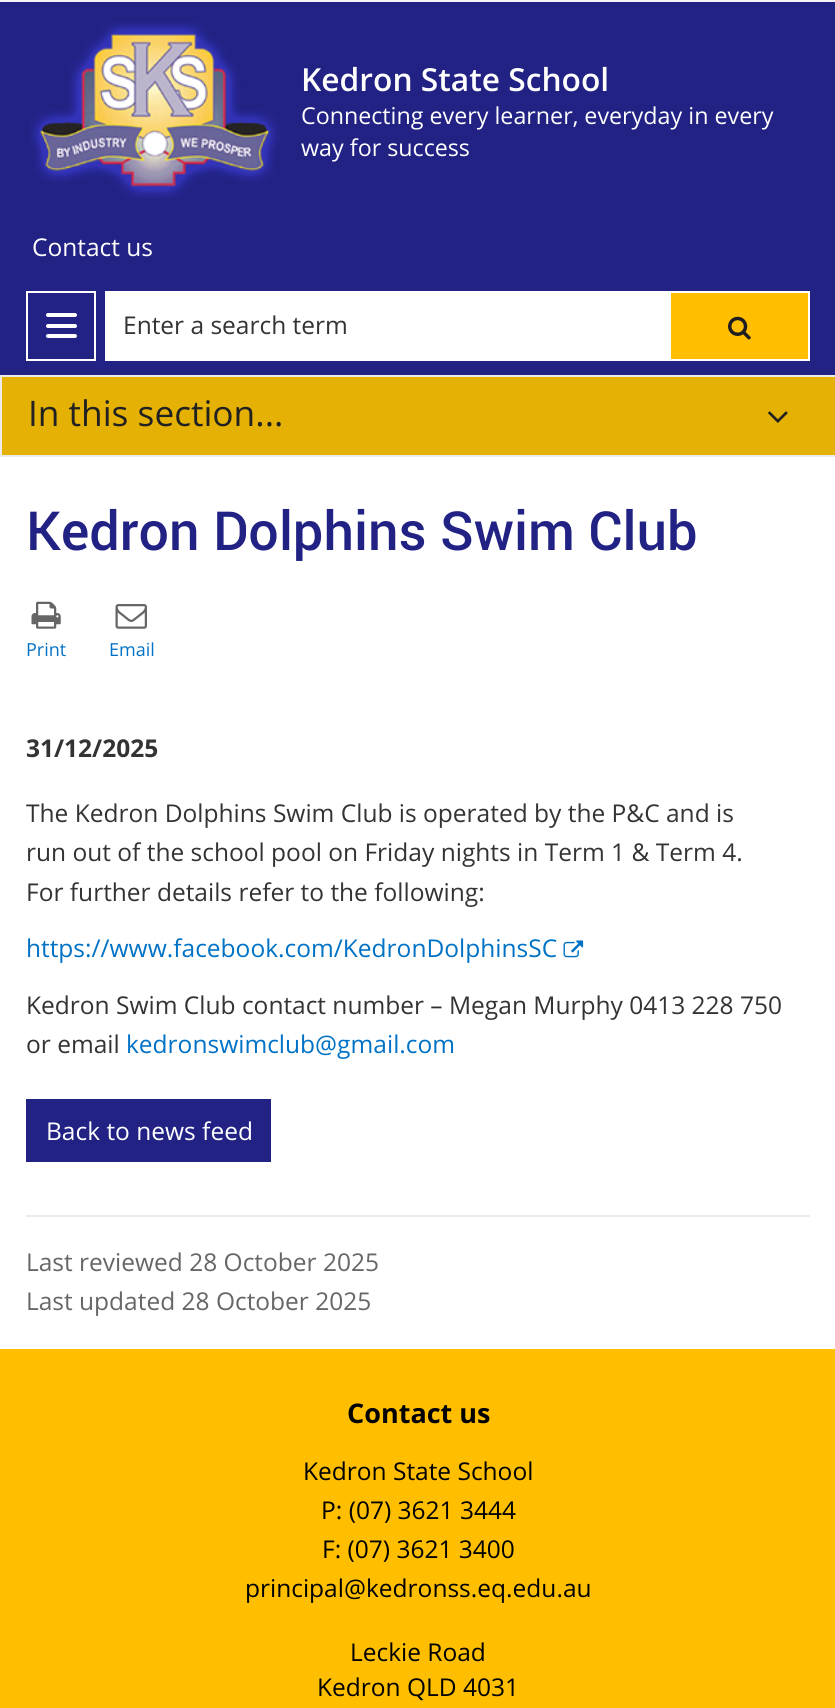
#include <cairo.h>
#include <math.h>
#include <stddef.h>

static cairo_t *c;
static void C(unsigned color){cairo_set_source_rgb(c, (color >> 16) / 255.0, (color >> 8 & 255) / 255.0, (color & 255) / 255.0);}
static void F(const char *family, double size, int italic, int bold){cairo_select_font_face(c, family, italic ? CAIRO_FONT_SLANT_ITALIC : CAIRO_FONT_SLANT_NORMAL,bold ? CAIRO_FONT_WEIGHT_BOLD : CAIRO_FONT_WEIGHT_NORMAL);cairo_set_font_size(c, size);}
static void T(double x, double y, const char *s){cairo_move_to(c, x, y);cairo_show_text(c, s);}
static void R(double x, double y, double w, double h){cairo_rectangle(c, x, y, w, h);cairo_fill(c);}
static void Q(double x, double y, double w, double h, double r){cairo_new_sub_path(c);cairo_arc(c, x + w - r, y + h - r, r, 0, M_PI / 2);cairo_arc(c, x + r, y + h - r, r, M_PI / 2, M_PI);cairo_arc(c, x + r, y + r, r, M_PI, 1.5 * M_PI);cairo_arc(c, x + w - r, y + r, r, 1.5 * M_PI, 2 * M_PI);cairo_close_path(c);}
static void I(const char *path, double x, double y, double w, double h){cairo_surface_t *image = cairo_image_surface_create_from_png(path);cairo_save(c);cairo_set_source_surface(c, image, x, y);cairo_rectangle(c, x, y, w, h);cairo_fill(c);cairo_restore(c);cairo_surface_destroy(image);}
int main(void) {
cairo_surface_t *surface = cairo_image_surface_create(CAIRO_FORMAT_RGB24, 835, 1708);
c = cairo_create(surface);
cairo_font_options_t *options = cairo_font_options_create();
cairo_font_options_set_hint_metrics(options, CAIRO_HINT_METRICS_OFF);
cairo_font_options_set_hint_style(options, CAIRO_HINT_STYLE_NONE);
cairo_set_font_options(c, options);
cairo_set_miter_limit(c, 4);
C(0xffffff);
cairo_paint(c);
C(0xf3f3f3);
R(0,0,835,2);
C(0x222285);
R(0,2,835,373);
I("1.png",30,21,250,178);
F("Open Sans SemiBold",31.75,0,0);
C(0xffffff);
T(301,91,"Kedron State School");
F("Open Sans",23.25,0,0);
T(301,124,"Connecting every learner, everyday in every");
T(301,156,"way for success");
F("Open Sans",24.5,0,0);
T(32,256,"Contact us");
R(105,291,564,70);
C(0x333333);
T(123,334,"Enter a search term");
C(0xffbf00);
cairo_rectangle(c,670,292,139,68);
cairo_fill_preserve(c);
C(0xffffff);
cairo_stroke(c);
I("2.png",728,316,23,24);
cairo_rectangle(c,27,292,68,68);
cairo_stroke(c);
Q(46,313,31,4,2);
cairo_fill(c);
Q(46,324,31,4,2);
cairo_fill(c);
Q(46,334,31,4,2);
cairo_fill(c);
C(0xe5b105);
cairo_rectangle(c,1,376,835,80);
cairo_fill_preserve(c);
C(0xececec);
cairo_stroke(c);
F("Open Sans",35.25,0,0);
C(0x212121);
T(28,426,"In this section...");
I("3.png",768,411,20,12);
F("Roboto Medium",53.9,0,0);
C(0x222285);
T(26,550,"Kedron Dolphins Swim Club");
I("4.png",31,601,30,28);
F("Open Sans",18,0,0);
C(0x0072c6);
T(26,656,"Print");
I("5.png",115,604,32,25);
T(109,656,"Email");
F("Open Sans",24.5,0,1);
C(0x333333);
T(26,757,"31/12/2025");
F("Open Sans",24.5,0,0);
T(26,822,"The Kedron Dolphins Swim Club is operated by the P&C and is");
T(26,861,"run out of the school pool on Friday nights in Term 1 & Term 4.");
T(26,901,"For further details refer to the following:");
C(0x0072c6);
T(26,957,"https://www.facebook.com/KedronDolphinsSC");
I("6.png",563,940,21,18);
C(0x333333);
T(26,1014,"Kedron Swim Club contact number – Megan Murphy 0413 228 750");
T(26,1053,"or email");
C(0x0072c6);
T(126,1053,"kedronswimclub@gmail.com");
C(0x222285);
R(26,1099,245,63);
C(0xffffff);
T(46,1140,"Back to news feed");
C(0xeaeaea);
R(26,1215,784,2);
C(0x666666);
T(26,1271,"Last reviewed 28 October 2025");
T(26,1310,"Last updated 28 October 2025");
C(0xffbf00);
R(0,1349,835,359);
F("Open Sans",27,0,1);
C(0x000000);
T(347,1423,"Contact us");
F("Open Sans",24.5,0,0);
T(303,1480,"Kedron State School");
T(321,1519,"P: (07) 3621 3444");
T(322,1558,"F: (07) 3621 3400");
T(245,1597,"principal@kedronss.eq.edu.au");
T(350,1661,"Leckie Road");
T(317,1696,"Kedron QLD 4031");
cairo_surface_write_to_png(surface, "o.png");
cairo_font_options_destroy(options);
cairo_destroy(c);
cairo_surface_destroy(surface);
return 0;
}
